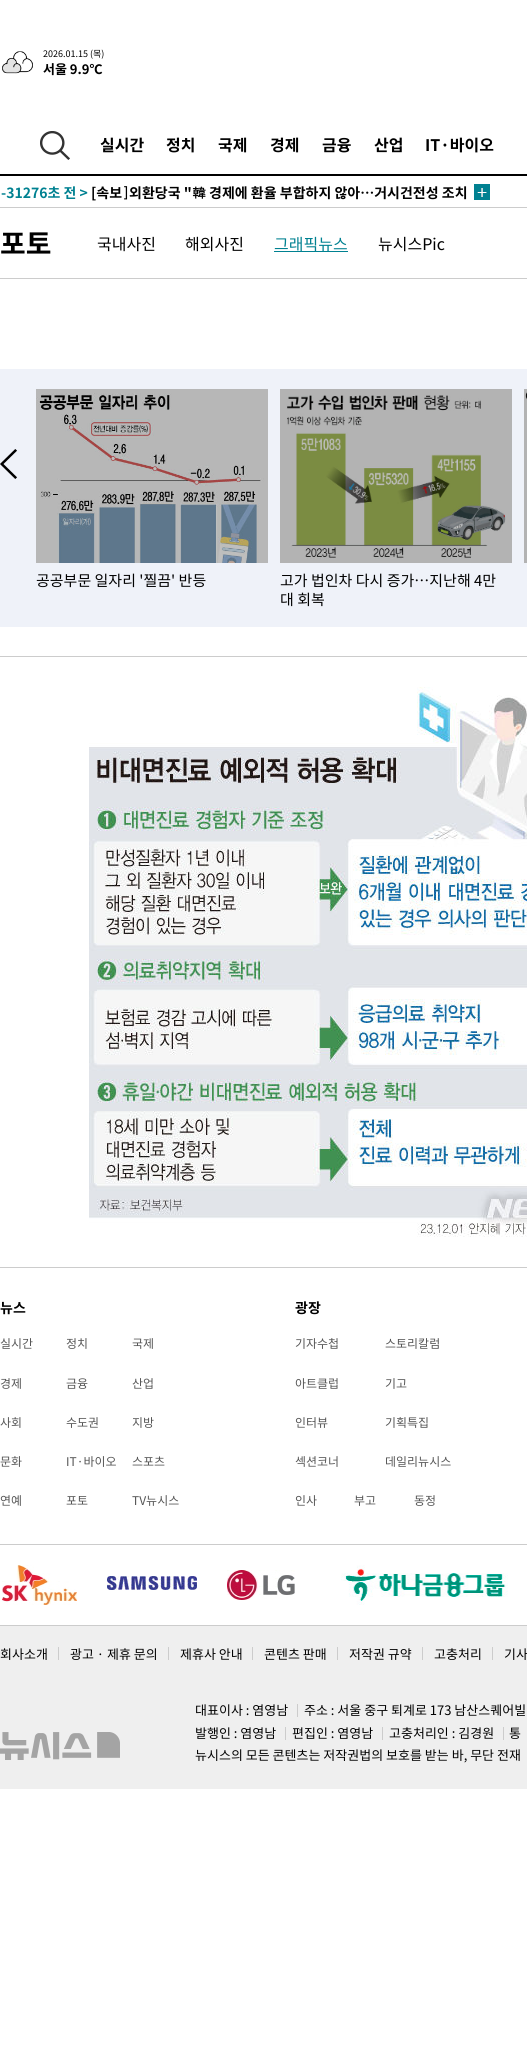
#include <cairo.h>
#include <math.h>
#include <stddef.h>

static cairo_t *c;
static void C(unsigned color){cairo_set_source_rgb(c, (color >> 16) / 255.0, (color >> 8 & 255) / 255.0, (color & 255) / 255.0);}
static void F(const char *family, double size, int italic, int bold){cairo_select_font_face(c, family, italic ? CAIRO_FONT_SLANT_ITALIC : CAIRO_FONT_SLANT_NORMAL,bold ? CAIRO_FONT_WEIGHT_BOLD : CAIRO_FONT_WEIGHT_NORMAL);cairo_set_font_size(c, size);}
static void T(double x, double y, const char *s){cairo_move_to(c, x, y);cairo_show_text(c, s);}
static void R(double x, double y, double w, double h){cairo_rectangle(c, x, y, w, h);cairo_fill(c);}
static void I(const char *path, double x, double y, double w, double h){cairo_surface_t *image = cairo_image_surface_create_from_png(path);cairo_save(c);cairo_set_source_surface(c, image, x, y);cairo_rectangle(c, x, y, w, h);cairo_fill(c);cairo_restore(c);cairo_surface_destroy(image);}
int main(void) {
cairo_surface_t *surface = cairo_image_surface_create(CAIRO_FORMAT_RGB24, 527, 2059);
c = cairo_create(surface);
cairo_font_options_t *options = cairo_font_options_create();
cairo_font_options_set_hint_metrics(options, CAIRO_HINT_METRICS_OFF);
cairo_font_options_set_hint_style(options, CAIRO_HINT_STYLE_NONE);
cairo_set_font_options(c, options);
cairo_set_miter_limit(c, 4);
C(0xffffff);
cairo_paint(c);
I("1.png",2,51,31,23);
F("Noto Sans KR",9,0,0);
C(0x000000);
T(43,57,"2026.01.15 (목)");
F("Noto Sans KR",13,0,1);
T(43,74,"서울 9.9℃");
R(0,174,527,2);
I("2.png",40,131,30,29);
F("Noto Sans KR",16,0,1);
T(100,151,"실시간");
T(166,151,"정치");
T(218,151,"국제");
T(270,151,"경제");
T(322,151,"금융");
T(374,151,"산업");
T(425,151,"IT·바이오");
C(0xcccccc);
R(0,207,527,1);
F("Noto Sans KR",14,0,1);
C(0x008191);
T(1,198,"-31276초 전 >");
C(0x000000);
T(91,198,"[속보");
F("Dotum",14,0,1);
T(122,198,"]");
F("Noto Sans KR",14,0,1);
T(129,198,"외환당국 \"");
F("Dotum",14,0,1);
T(192,198,"韓");
F("Noto Sans KR",14,0,1);
T(209,198,"경제에 환율 부합하지 않아…거시건전성 조치");
I("3.png",474,184,16,16);
C(0xcccccc);
R(0,278,527,1);
F("Noto Sans KR",28,0,1);
C(0x000000);
T(0,254,"포토");
F("Noto Sans KR",16,0,0);
T(97,250,"국내사진");
T(185,250,"해외사진");
C(0x008191);
R(274,251,74,1);
T(274,250,"그래픽뉴스");
C(0x000000);
T(378,250,"뉴시스Pic");
C(0xeff2f9);
R(0,369,527,258);
I("4.png",0,449,17,30);
I("5.png",524,389,3,174);
I("6.png",36,389,232,174);
F("Noto Sans KR",15,0,0);
C(0x000000);
T(36,586,"공공부문 일자리 '찔끔' 반등");
I("7.png",280,389,232,174);
T(280,586,"고가 법인차 다시 증가…지난해 4만");
T(280,605,"대 회복");
C(0xcccccc);
R(0,656,527,1);
I("8.png",89,687,438,550);
R(0,1267,527,1);
F("Noto Sans KR",14,0,1);
C(0x000000);
T(0,1313,"뉴스");
F("Noto Sans KR",12,0,0);
C(0x555555);
T(0,1348,"실시간");
T(66,1348,"정치");
T(132,1348,"국제");
T(0,1388,"경제");
T(66,1388,"금융");
T(132,1388,"산업");
T(0,1427,"사회");
T(66,1427,"수도권");
T(132,1427,"지방");
T(0,1466,"문화");
T(66,1466,"IT·바이오");
T(132,1466,"스포츠");
T(0,1505,"연예");
T(66,1505,"포토");
T(132,1505,"TV뉴시스");
F("Noto Sans KR",14,0,1);
C(0x000000);
T(295,1313,"광장");
F("Noto Sans KR",12,0,0);
C(0x555555);
T(295,1348,"기자수첩");
T(385,1348,"스토리칼럼");
T(295,1388,"아트클럽");
T(385,1388,"기고");
T(295,1427,"인터뷰");
T(385,1427,"기획특집");
T(295,1466,"섹션코너");
T(385,1466,"데일리뉴시스");
T(295,1505,"인사");
T(354,1505,"부고");
T(414,1505,"동정");
C(0xcccccc);
R(0,1544,527,1);
I("9.png",2,1565,75,40);
I("10.png",107,1576,90,14);
I("11.png",227,1570,68,30);
I("12.png",341,1565,167,40);
C(0xefefef);
R(0,1626,527,163);
C(0xcccccc);
R(0,1625,527,1);
F("Noto Sans KR",13,0,0);
C(0x000000);
T(0,1659,"회사소개");
C(0xcccccc);
R(58,1647,1,13);
C(0x000000);
T(70,1659,"광고 · 제휴 문의");
C(0xcccccc);
R(168,1647,1,13);
C(0x000000);
T(180,1659,"제휴사 안내");
C(0xcccccc);
R(252,1647,1,13);
C(0x000000);
T(264,1659,"콘텐츠 판매");
C(0xcccccc);
R(337,1647,1,13);
C(0x000000);
T(349,1659,"저작권 규약");
C(0xcccccc);
R(422,1647,1,13);
C(0x000000);
T(434,1659,"고충처리");
C(0xcccccc);
R(492,1647,1,13);
C(0x000000);
T(504,1659,"기사");
I("13.png",0,1732,120,28);
T(195,1715,"대표이사 : 염영남");
C(0xcccccc);
R(297,1704,1,13);
C(0x000000);
T(304,1715,"주소 : 서울 중구 퇴계로 173 남산스퀘어빌");
T(195,1738,"발행인 : 염영남");
C(0xcccccc);
R(285,1727,1,13);
C(0x000000);
T(292,1738,"편집인 : 염영남");
C(0xcccccc);
R(382,1727,1,13);
C(0x000000);
T(389,1738,"고충처리인 : 김경원");
C(0xcccccc);
R(503,1727,1,13);
C(0x000000);
T(509,1738,"통");
T(195,1760,"뉴시스의 모든 콘텐츠는 저작권법의 보호를 받는 바, 무단 전재");
cairo_surface_write_to_png(surface, "o.png");
cairo_font_options_destroy(options);
cairo_destroy(c);
cairo_surface_destroy(surface);
return 0;
}
